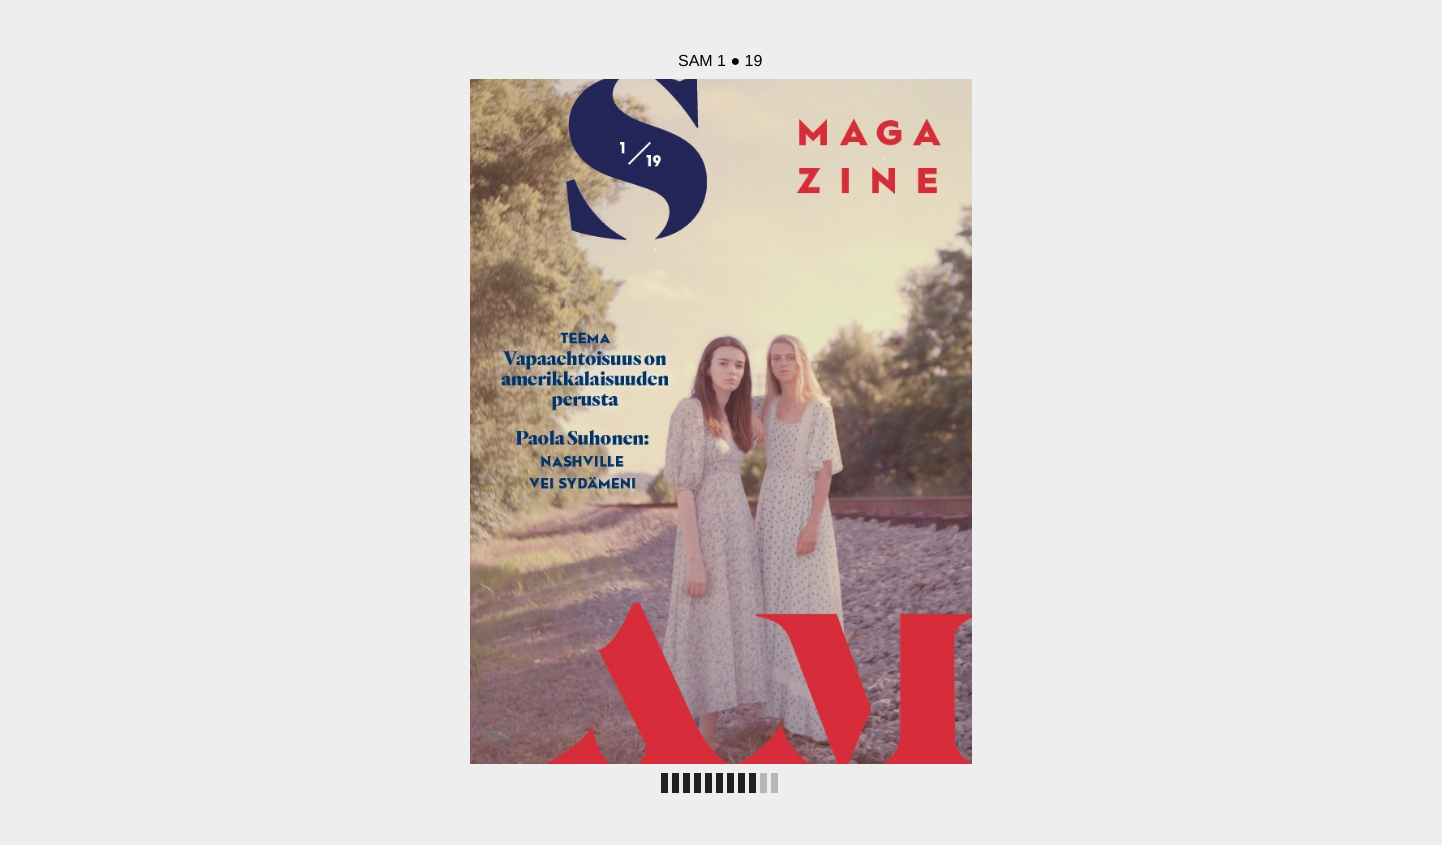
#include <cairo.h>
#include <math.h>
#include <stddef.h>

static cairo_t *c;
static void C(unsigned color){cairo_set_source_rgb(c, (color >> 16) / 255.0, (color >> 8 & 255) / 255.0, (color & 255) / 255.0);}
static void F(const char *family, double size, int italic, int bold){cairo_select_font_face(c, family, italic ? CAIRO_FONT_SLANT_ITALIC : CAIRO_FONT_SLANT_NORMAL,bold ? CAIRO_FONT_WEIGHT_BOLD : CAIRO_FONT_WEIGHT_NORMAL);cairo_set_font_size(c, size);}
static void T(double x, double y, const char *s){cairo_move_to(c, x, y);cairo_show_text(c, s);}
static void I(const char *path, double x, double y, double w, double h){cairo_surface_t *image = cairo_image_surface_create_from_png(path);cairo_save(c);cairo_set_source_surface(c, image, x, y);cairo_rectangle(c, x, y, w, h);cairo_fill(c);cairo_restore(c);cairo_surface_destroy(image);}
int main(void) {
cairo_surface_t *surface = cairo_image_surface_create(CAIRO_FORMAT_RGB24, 1442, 845);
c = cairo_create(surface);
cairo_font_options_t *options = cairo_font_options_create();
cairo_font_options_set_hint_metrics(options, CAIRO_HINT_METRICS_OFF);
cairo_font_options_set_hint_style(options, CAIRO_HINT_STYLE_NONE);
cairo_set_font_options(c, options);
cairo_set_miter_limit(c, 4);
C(0xeeeeee);
cairo_paint(c);
F("Liberation Sans",16,0,0);
C(0x000000);
T(678,66,"SAM 1 ● 19");
I("1.png",470,79,502,685);
I("2.png",661,773,117,20);
cairo_surface_write_to_png(surface, "o.png");
cairo_font_options_destroy(options);
cairo_destroy(c);
cairo_surface_destroy(surface);
return 0;
}
